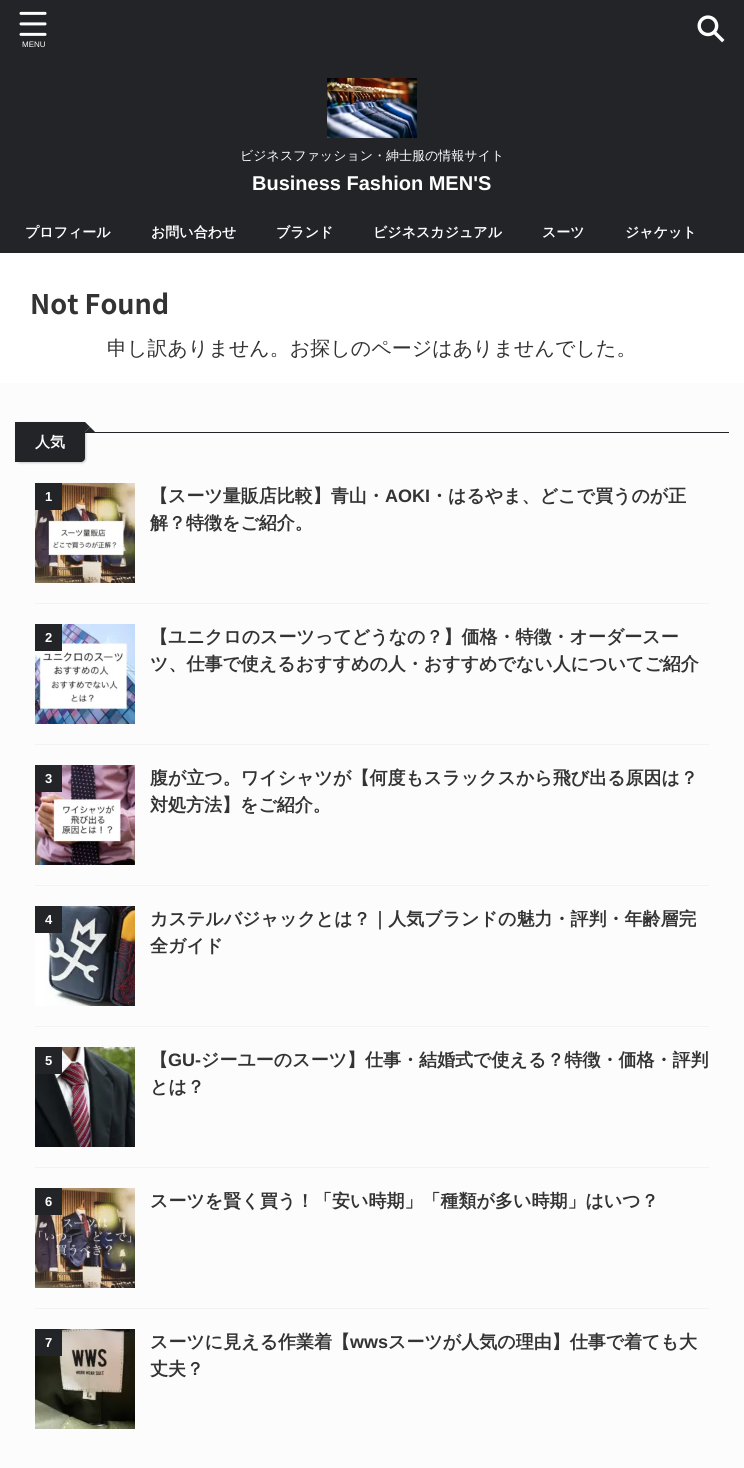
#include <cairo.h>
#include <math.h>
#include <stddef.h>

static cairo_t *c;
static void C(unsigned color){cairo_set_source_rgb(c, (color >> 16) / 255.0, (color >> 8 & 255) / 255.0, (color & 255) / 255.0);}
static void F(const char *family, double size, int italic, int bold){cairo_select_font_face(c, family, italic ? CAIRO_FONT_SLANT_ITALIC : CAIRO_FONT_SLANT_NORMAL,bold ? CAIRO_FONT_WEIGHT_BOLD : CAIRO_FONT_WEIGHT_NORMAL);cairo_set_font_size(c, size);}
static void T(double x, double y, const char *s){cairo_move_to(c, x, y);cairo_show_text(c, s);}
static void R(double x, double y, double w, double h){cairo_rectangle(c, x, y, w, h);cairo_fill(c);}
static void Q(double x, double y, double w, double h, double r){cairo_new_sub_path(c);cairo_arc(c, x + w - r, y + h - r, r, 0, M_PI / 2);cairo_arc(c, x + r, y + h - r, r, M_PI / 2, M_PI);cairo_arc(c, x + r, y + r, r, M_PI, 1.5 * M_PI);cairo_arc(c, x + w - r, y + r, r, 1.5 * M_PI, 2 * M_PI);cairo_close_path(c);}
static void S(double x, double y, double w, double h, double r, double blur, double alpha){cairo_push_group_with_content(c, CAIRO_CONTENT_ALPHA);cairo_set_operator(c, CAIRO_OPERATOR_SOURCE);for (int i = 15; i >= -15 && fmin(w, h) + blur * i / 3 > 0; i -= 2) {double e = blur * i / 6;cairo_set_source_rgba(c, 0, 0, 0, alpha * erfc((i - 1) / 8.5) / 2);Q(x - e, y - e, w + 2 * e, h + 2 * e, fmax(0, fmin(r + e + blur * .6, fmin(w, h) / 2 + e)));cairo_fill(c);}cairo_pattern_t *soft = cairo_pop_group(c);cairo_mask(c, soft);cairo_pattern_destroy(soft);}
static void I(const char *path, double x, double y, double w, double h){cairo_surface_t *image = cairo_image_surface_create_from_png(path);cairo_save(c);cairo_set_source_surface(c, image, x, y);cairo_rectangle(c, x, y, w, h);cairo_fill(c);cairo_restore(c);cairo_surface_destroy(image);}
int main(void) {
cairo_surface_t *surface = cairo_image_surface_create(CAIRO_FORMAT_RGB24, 744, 1468);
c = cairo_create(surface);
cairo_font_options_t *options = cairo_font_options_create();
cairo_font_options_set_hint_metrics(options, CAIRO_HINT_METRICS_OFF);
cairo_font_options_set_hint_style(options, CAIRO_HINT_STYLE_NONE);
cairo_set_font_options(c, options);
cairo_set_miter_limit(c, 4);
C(0xfcfcfc);
cairo_paint(c);
C(0x222428);
R(0,0,744,253);
I("1.png",697,15,28,28);
I("2.png",19,11,28,25);
F("Liberation Sans",8,0,0);
C(0xffffff);
T(22,47,"MENU");
I("3.png",327,78,90,60);
F("WenQuanYi Zen Hei Medium",13,0,0);
T(240,160,"ビジネスファッション・紳士服の情報サイト");
F("Liberation Sans",20,0,1);
T(252,190,"Business Fashion MEN'S");
F("WenQuanYi Zen Hei",14,0,1);
T(25,237,"プロフィール");
T(151,237,"お問い合わせ");
T(276,237,"ブランド");
T(373,237,"ビジネスカジュアル");
T(542,237,"スーツ");
T(625,237,"ジャケット");
R(0,253,744,130);
F("Noto Sans JP",27,0,1);
C(0x333333);
T(30,314,"Not Found");
F("WenQuanYi Zen Hei Medium",20,0,0);
T(107,355,"申し訳ありません。お探しのページはありませんでした。");
C(0x222428);
R(85,432,644,1);
C(0x000000);
S(16,423,70,40,4,1,.2);
C(0x222428);
cairo_new_path(c);
cairo_move_to(c,15,422);
cairo_line_to(c,85,422);
cairo_line_to(c,85,458);
cairo_curve_to(c,85,460,83,462,81,462);
cairo_line_to(c,15,462);
cairo_close_path(c);
cairo_fill(c);
cairo_new_path(c);
cairo_move_to(c,95,432);
cairo_line_to(c,85,432);
cairo_line_to(c,90,427);
cairo_close_path(c);
cairo_fill(c);
cairo_new_path(c);
cairo_move_to(c,85,432);
cairo_line_to(c,85,422);
cairo_line_to(c,90,427);
cairo_close_path(c);
cairo_fill(c);
cairo_set_source_rgba(c,0.2,0.2,0.2,0.2);
cairo_new_path(c);
cairo_move_to(c,95,432);
cairo_line_to(c,85,432);
cairo_line_to(c,90,427);
cairo_close_path(c);
cairo_fill(c);
cairo_new_path(c);
cairo_move_to(c,85,432);
cairo_line_to(c,85,422);
cairo_line_to(c,90,427);
cairo_close_path(c);
cairo_fill(c);
F("WenQuanYi Zen Hei",15,0,1);
C(0xffffff);
T(35,447,"人気");
C(0xf3f3f3);
R(35,603,674,1);
I("4.png",35,483,100,100);
C(0x222428);
R(35,483,27,27);
F("Liberation Sans",13,0,1);
C(0xffffff);
T(45,501,"1");
F("WenQuanYi Zen Hei",18,0,1);
C(0x333333);
T(150,502,"【スーツ量販店比較】青山・");
F("Liberation Sans",18,0,1);
T(385,502,"AOKI");
F("WenQuanYi Zen Hei",18,0,1);
T(430,502,"・はるやま、どこで買うのが正");
T(150,529,"解？特徴をご紹介。");
C(0xf3f3f3);
R(35,744,674,1);
I("5.png",35,624,100,100);
C(0x222428);
R(35,624,27,27);
F("Liberation Sans",13,0,1);
C(0xffffff);
T(45,642,"2");
F("WenQuanYi Zen Hei",18,0,1);
C(0x333333);
T(150,643,"【ユニクロのスーツってどうなの？】価格・特徴・オーダースー");
T(150,670,"ツ、仕事で使えるおすすめの人・おすすめでない人についてご紹介");
C(0xf3f3f3);
R(35,885,674,1);
I("6.png",35,765,100,100);
C(0x222428);
R(35,765,27,27);
F("Liberation Sans",13,0,1);
C(0xffffff);
T(45,783,"3");
F("WenQuanYi Zen Hei",18,0,1);
C(0x333333);
T(150,784,"腹が立つ。ワイシャツが【何度もスラックスから飛び出る原因は？");
T(150,811,"対処方法】をご紹介。");
C(0xf3f3f3);
R(35,1026,674,1);
I("7.png",35,906,100,100);
C(0x222428);
R(35,906,27,27);
F("Liberation Sans",13,0,1);
C(0xffffff);
T(45,924,"4");
F("WenQuanYi Zen Hei",18,0,1);
C(0x333333);
T(150,925,"カステルバジャックとは？｜人気ブランドの魅力・評判・年齢層完");
T(150,952,"全ガイド");
C(0xf3f3f3);
R(35,1167,674,1);
I("8.png",35,1047,100,100);
C(0x222428);
R(35,1047,27,27);
F("Liberation Sans",13,0,1);
C(0xffffff);
T(45,1065,"5");
F("WenQuanYi Zen Hei",18,0,1);
C(0x333333);
T(150,1066,"【");
F("Liberation Sans",18,0,1);
T(168,1066,"GU-");
F("WenQuanYi Zen Hei",18,0,1);
T(201,1066,"ジーユーのスーツ】仕事・結婚式で使える？特徴・価格・評判");
T(150,1093,"とは？");
C(0xf3f3f3);
R(35,1308,674,1);
I("9.png",35,1188,100,100);
C(0x222428);
R(35,1188,27,27);
F("Liberation Sans",13,0,1);
C(0xffffff);
T(45,1206,"6");
F("WenQuanYi Zen Hei",18,0,1);
C(0x333333);
T(150,1207,"スーツを賢く買う！「安い時期」「種類が多い時期」はいつ？");
I("10.png",35,1329,100,100);
C(0x222428);
R(35,1329,27,27);
F("Liberation Sans",13,0,1);
C(0xffffff);
T(45,1347,"7");
F("WenQuanYi Zen Hei",18,0,1);
C(0x333333);
T(150,1348,"スーツに見える作業着【");
F("Liberation Sans",18,0,1);
T(350,1348,"wws");
F("WenQuanYi Zen Hei",18,0,1);
T(388,1348,"スーツが人気の理由】仕事で着ても大");
T(150,1375,"丈夫？");
cairo_surface_write_to_png(surface, "o.png");
cairo_font_options_destroy(options);
cairo_destroy(c);
cairo_surface_destroy(surface);
return 0;
}
